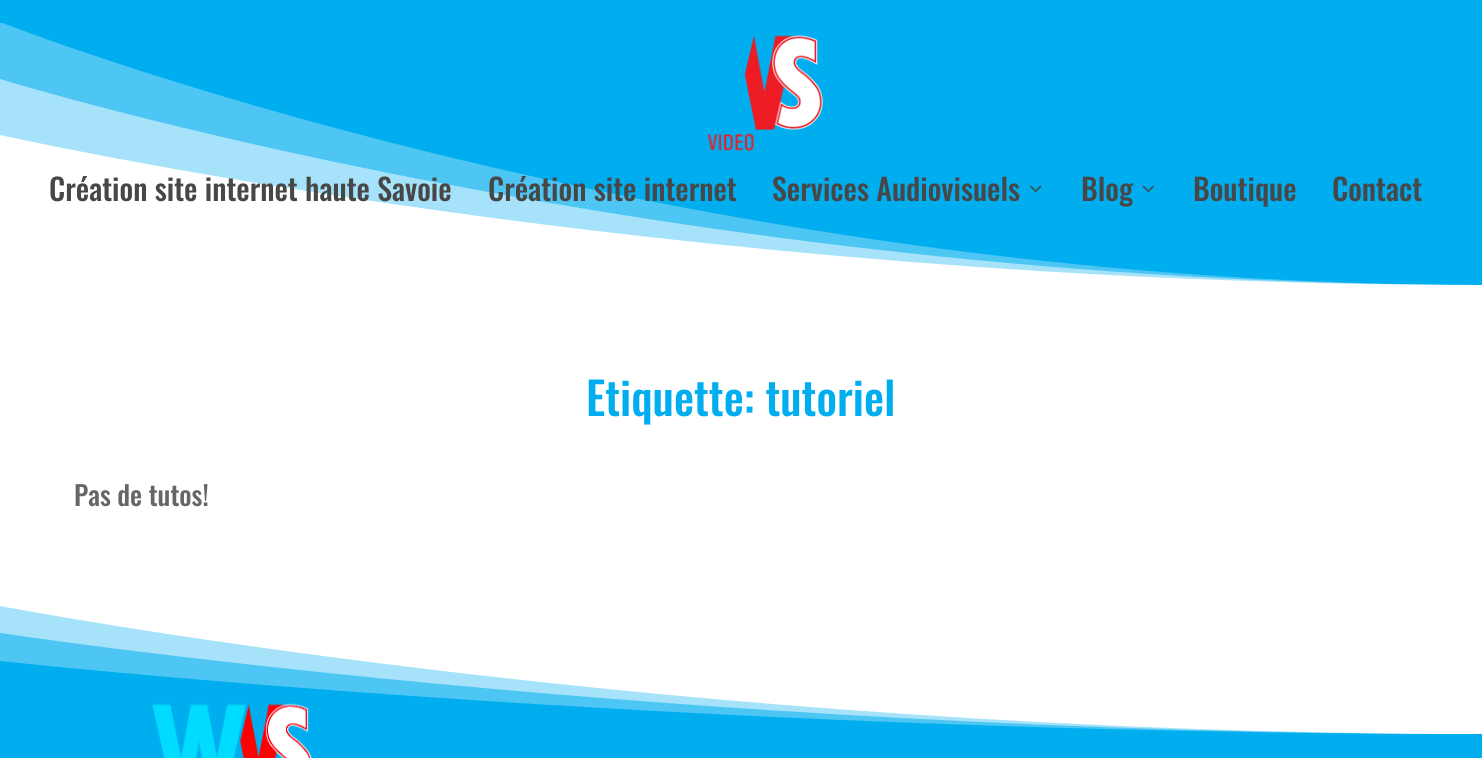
#include <cairo.h>
#include <math.h>
#include <stddef.h>

static cairo_t *c;
static void C(unsigned color){cairo_set_source_rgb(c, (color >> 16) / 255.0, (color >> 8 & 255) / 255.0, (color & 255) / 255.0);}
static void F(const char *family, double size, int italic, int bold){cairo_select_font_face(c, family, italic ? CAIRO_FONT_SLANT_ITALIC : CAIRO_FONT_SLANT_NORMAL,bold ? CAIRO_FONT_WEIGHT_BOLD : CAIRO_FONT_WEIGHT_NORMAL);cairo_set_font_size(c, size);}
static void T(double x, double y, const char *s){cairo_move_to(c, x, y);cairo_show_text(c, s);}
static void R(double x, double y, double w, double h){cairo_rectangle(c, x, y, w, h);cairo_fill(c);}
static void I(const char *path, double x, double y, double w, double h){cairo_surface_t *image = cairo_image_surface_create_from_png(path);cairo_save(c);cairo_set_source_surface(c, image, x, y);cairo_rectangle(c, x, y, w, h);cairo_fill(c);cairo_restore(c);cairo_surface_destroy(image);}
int main(void) {
cairo_surface_t *surface = cairo_image_surface_create(CAIRO_FORMAT_RGB24, 1482, 758);
c = cairo_create(surface);
cairo_font_options_t *options = cairo_font_options_create();
cairo_font_options_set_hint_metrics(options, CAIRO_HINT_METRICS_OFF);
cairo_font_options_set_hint_style(options, CAIRO_HINT_STYLE_NONE);
cairo_set_font_options(c, options);
cairo_set_miter_limit(c, 4);
C(0xffffff);
cairo_paint(c);
C(0x00aeef);
R(0,0,1482,285);
cairo_save(c);
cairo_rectangle(c,0,23,1482,262);
cairo_clip(c);
C(0x4dc6f4);
cairo_new_path(c);
cairo_move_to(c,0,285);
cairo_line_to(c,1482,285);
cairo_curve_to(c,664,285,0,22,0,22);
cairo_close_path(c);
cairo_fill(c);
cairo_restore(c);
cairo_set_source_rgba(c,1,1,1,0.5);
cairo_new_path(c);
cairo_move_to(c,0,285);
cairo_line_to(c,1482,285);
cairo_curve_to(c,664,285,0,79,0,79);
cairo_close_path(c);
cairo_fill(c);
C(0xffffff);
cairo_new_path(c);
cairo_move_to(c,0,285);
cairo_line_to(c,1482,285);
cairo_curve_to(c,664,285,0,135,0,135);
cairo_close_path(c);
cairo_fill(c);
I("1.png",707,35,116,116);
F("Oswald Medium",30,0,0);
C(0x474747);
T(49,201,"Création site internet haute Savoie");
T(488,201,"Création site internet");
T(772,201,"Services Audiovisuels");
I("2.png",1030,185,12,7);
T(1081,201,"Blog");
I("3.png",1142,185,12,7);
T(1193,201,"Boutique");
T(1332,201,"Contact");
F("Oswald Medium",45,0,0);
C(0x00aeef);
T(586,416,"Etiquette: tutoriel");
F("Oswald Medium",27,0,0);
C(0x666666);
T(74,506,"Pas de tutos!");
C(0x00aeef);
R(0,661,1482,97);
C(0x4dc6f4);
cairo_new_path(c);
cairo_move_to(c,0,606);
cairo_line_to(c,0,661);
cairo_curve_to(c,0,661,664,734,1482,734);
cairo_line_to(c,1482,606);
cairo_close_path(c);
cairo_fill(c);
cairo_set_source_rgba(c,1,1,1,0.5);
cairo_new_path(c);
cairo_move_to(c,0,606);
cairo_line_to(c,0,633);
cairo_curve_to(c,0,633,664,734,1482,734);
cairo_line_to(c,1482,606);
cairo_close_path(c);
cairo_fill(c);
C(0xffffff);
cairo_new_path(c);
cairo_move_to(c,0,606);
cairo_curve_to(c,0,606,664,734,1482,734);
cairo_line_to(c,1482,606);
cairo_close_path(c);
cairo_fill(c);
I("4.png",152,703,160,55);
cairo_surface_write_to_png(surface, "o.png");
cairo_font_options_destroy(options);
cairo_destroy(c);
cairo_surface_destroy(surface);
return 0;
}
